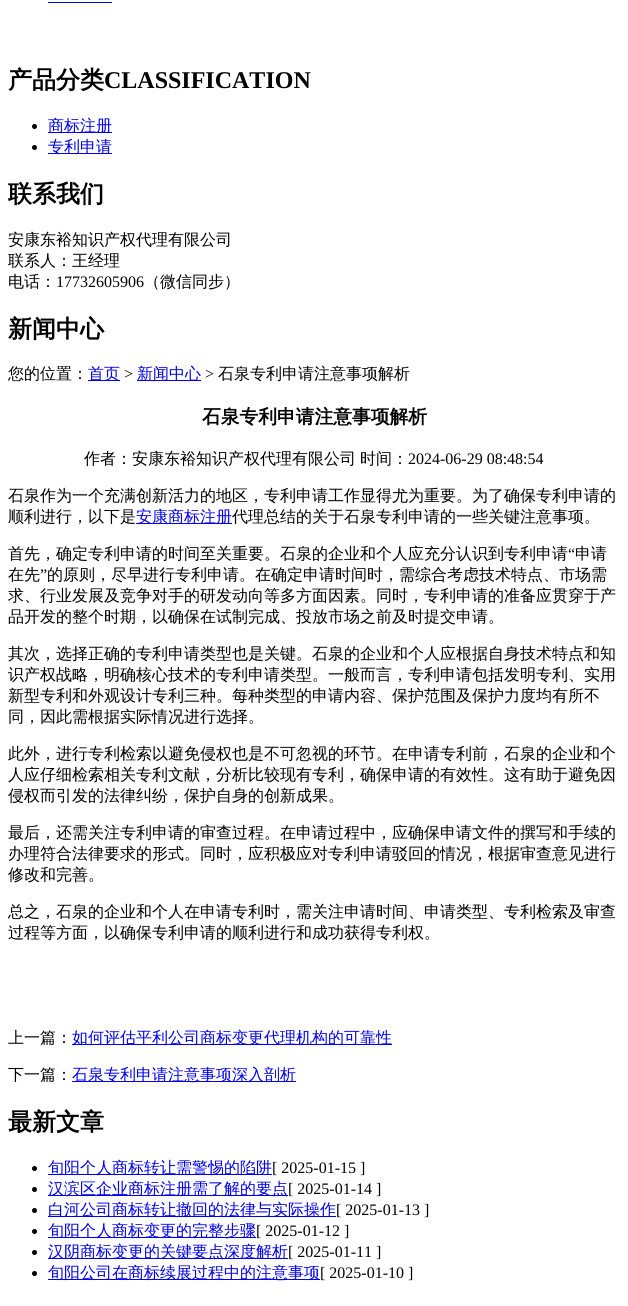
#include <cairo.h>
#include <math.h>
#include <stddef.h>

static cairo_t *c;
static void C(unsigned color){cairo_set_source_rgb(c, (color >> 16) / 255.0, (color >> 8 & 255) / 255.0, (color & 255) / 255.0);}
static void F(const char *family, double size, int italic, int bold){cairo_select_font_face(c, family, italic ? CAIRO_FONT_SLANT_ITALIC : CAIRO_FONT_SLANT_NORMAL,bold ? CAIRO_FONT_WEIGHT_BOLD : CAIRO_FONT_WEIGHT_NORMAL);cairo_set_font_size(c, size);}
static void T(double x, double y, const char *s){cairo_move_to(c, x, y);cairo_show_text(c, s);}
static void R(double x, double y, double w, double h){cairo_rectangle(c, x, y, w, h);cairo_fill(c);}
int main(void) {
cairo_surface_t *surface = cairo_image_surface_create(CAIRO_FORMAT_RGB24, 628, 1306);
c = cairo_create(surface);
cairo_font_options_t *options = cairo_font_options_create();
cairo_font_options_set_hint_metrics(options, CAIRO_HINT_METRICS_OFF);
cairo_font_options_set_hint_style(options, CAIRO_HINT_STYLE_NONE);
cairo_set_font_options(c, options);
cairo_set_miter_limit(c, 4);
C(0xffffff);
cairo_paint(c);
C(0x0000ee);
R(48,2,64,1);
F("WenQuanYi Zen Hei",24,0,1);
C(0x000000);
T(8,88,"产品分类");
F("Liberation Serif",24,0,1);
T(104,88,"CLASSIFICATION");
cairo_new_path(c);
cairo_arc(c,34.5,126.5,2.5,0,2 * M_PI);
cairo_fill(c);
C(0x0000ee);
R(48,132,64,1);
F("WenQuanYi Zen Hei Medium",16,0,0);
T(48,131,"商标注册");
C(0x000000);
cairo_new_path(c);
cairo_arc(c,34.5,147.5,2.5,0,2 * M_PI);
cairo_fill(c);
C(0x0000ee);
R(48,153,64,1);
T(48,152,"专利申请");
F("WenQuanYi Zen Hei",24,0,1);
C(0x000000);
T(8,202,"联系我们");
F("WenQuanYi Zen Hei Medium",16,0,0);
T(8,245,"安康东裕知识产权代理有限公司");
T(8,266,"联系人：王经理");
T(8,287,"电话：");
F("Liberation Serif",16,0,0);
T(56,287,"17732605906");
F("WenQuanYi Zen Hei Medium",16,0,0);
T(144,287,"（微信同步）");
F("WenQuanYi Zen Hei",24,0,1);
T(8,337,"新闻中心");
F("WenQuanYi Zen Hei Medium",16,0,0);
T(8,379,"您的位置：");
C(0x0000ee);
R(88,380,32,1);
T(88,379,"首页");
F("Liberation Serif",16,0,0);
C(0x000000);
T(124,379,">");
C(0x0000ee);
R(137,380,64,1);
F("WenQuanYi Zen Hei Medium",16,0,0);
T(137,379,"新闻中心");
F("Liberation Serif",16,0,0);
C(0x000000);
T(205,379,">");
F("WenQuanYi Zen Hei Medium",16,0,0);
T(218,379,"石泉专利申请注意事项解析");
F("WenQuanYi Zen Hei",18.75,0,1);
T(202,423,"石泉专利申请注意事项解析");
F("WenQuanYi Zen Hei Medium",16,0,0);
T(84,464,"作者：安康东裕知识产权代理有限公司");
T(360,464,"时间：");
F("Liberation Serif",16,0,0);
T(408,464,"2024-06-29 08:48:54");
F("WenQuanYi Zen Hei Medium",16,0,0);
T(8,501,"石泉作为一个充满创新活力的地区，专利申请工作显得尤为重要。为了确保专利申请的");
T(8,522,"顺利进行，以下是");
C(0x0000ee);
R(136,523,96,1);
T(136,522,"安康商标注册");
C(0x000000);
T(232,522,"代理总结的关于石泉专利申请的一些关键注意事项。");
T(8,559,"首先，确定专利申请的时间至关重要。石泉的企业和个人应充分认识到专利申请");
F("Liberation Serif",16,0,0);
T(568,559,"“");
F("WenQuanYi Zen Hei Medium",16,0,0);
T(575,559,"申请");
T(8,580,"在先");
F("Liberation Serif",16,0,0);
T(40,580,"”");
F("WenQuanYi Zen Hei Medium",16,0,0);
T(47,580,"的原则，尽早进行专利申请。在确定申请时间时，需综合考虑技术特点、市场需");
T(8,601,"求、行业发展及竞争对手的研发动向等多方面因素。同时，专利申请的准备应贯穿于产");
T(8,622,"品开发的整个时期，以确保在试制完成、投放市场之前及时提交申请。");
T(8,659,"其次，选择正确的专利申请类型也是关键。石泉的企业和个人应根据自身技术特点和知");
T(8,680,"识产权战略，明确核心技术的专利申请类型。一般而言，专利申请包括发明专利、实用");
T(8,701,"新型专利和外观设计专利三种。每种类型的申请内容、保护范围及保护力度均有所不");
T(8,722,"同，因此需根据实际情况进行选择。");
T(8,759,"此外，进行专利检索以避免侵权也是不可忽视的环节。在申请专利前，石泉的企业和个");
T(8,780,"人应仔细检索相关专利文献，分析比较现有专利，确保申请的有效性。这有助于避免因");
T(8,801,"侵权而引发的法律纠纷，保护自身的创新成果。");
T(8,838,"最后，还需关注专利申请的审查过程。在申请过程中，应确保申请文件的撰写和手续的");
T(8,859,"办理符合法律要求的形式。同时，应积极应对专利申请驳回的情况，根据审查意见进行");
T(8,880,"修改和完善。");
T(8,917,"总之，石泉的企业和个人在申请专利时，需关注申请时间、申请类型、专利检索及审查");
T(8,938,"过程等方面，以确保专利申请的顺利进行和成功获得专利权。");
T(8,1043,"上一篇：");
C(0x0000ee);
R(72,1044,320,1);
T(72,1043,"如何评估平利公司商标变更代理机构的可靠性");
C(0x000000);
T(8,1080,"下一篇：");
C(0x0000ee);
R(72,1081,224,1);
T(72,1080,"石泉专利申请注意事项深入剖析");
F("WenQuanYi Zen Hei",24,0,1);
C(0x000000);
T(8,1130,"最新文章");
cairo_new_path(c);
cairo_arc(c,34.5,1168.5,2.5,0,2 * M_PI);
cairo_fill(c);
C(0x0000ee);
R(48,1174,224,1);
F("WenQuanYi Zen Hei Medium",16,0,0);
T(48,1173,"旬阳个人商标转让需警惕的陷阱");
F("Liberation Serif",16,0,0);
C(0x000000);
T(272,1173,"[ 2025-01-15 ]");
cairo_new_path(c);
cairo_arc(c,34.5,1189.5,2.5,0,2 * M_PI);
cairo_fill(c);
C(0x0000ee);
R(48,1195,240,1);
F("WenQuanYi Zen Hei Medium",16,0,0);
T(48,1194,"汉滨区企业商标注册需了解的要点");
F("Liberation Serif",16,0,0);
C(0x000000);
T(288,1194,"[ 2025-01-14 ]");
cairo_new_path(c);
cairo_arc(c,34.5,1210.5,2.5,0,2 * M_PI);
cairo_fill(c);
C(0x0000ee);
R(48,1216,288,1);
F("WenQuanYi Zen Hei Medium",16,0,0);
T(48,1215,"白河公司商标转让撤回的法律与实际操作");
F("Liberation Serif",16,0,0);
C(0x000000);
T(336,1215,"[ 2025-01-13 ]");
cairo_new_path(c);
cairo_arc(c,34.5,1231.5,2.5,0,2 * M_PI);
cairo_fill(c);
C(0x0000ee);
R(48,1237,208,1);
F("WenQuanYi Zen Hei Medium",16,0,0);
T(48,1236,"旬阳个人商标变更的完整步骤");
F("Liberation Serif",16,0,0);
C(0x000000);
T(256,1236,"[ 2025-01-12 ]");
cairo_new_path(c);
cairo_arc(c,34.5,1252.5,2.5,0,2 * M_PI);
cairo_fill(c);
C(0x0000ee);
R(48,1258,240,1);
F("WenQuanYi Zen Hei Medium",16,0,0);
T(48,1257,"汉阴商标变更的关键要点深度解析");
F("Liberation Serif",16,0,0);
C(0x000000);
T(288,1257,"[ 2025-01-11 ]");
cairo_new_path(c);
cairo_arc(c,34.5,1273.5,2.5,0,2 * M_PI);
cairo_fill(c);
C(0x0000ee);
R(48,1279,272,1);
F("WenQuanYi Zen Hei Medium",16,0,0);
T(48,1278,"旬阳公司在商标续展过程中的注意事项");
F("Liberation Serif",16,0,0);
C(0x000000);
T(320,1278,"[ 2025-01-10 ]");
cairo_surface_write_to_png(surface, "o.png");
cairo_font_options_destroy(options);
cairo_destroy(c);
cairo_surface_destroy(surface);
return 0;
}
